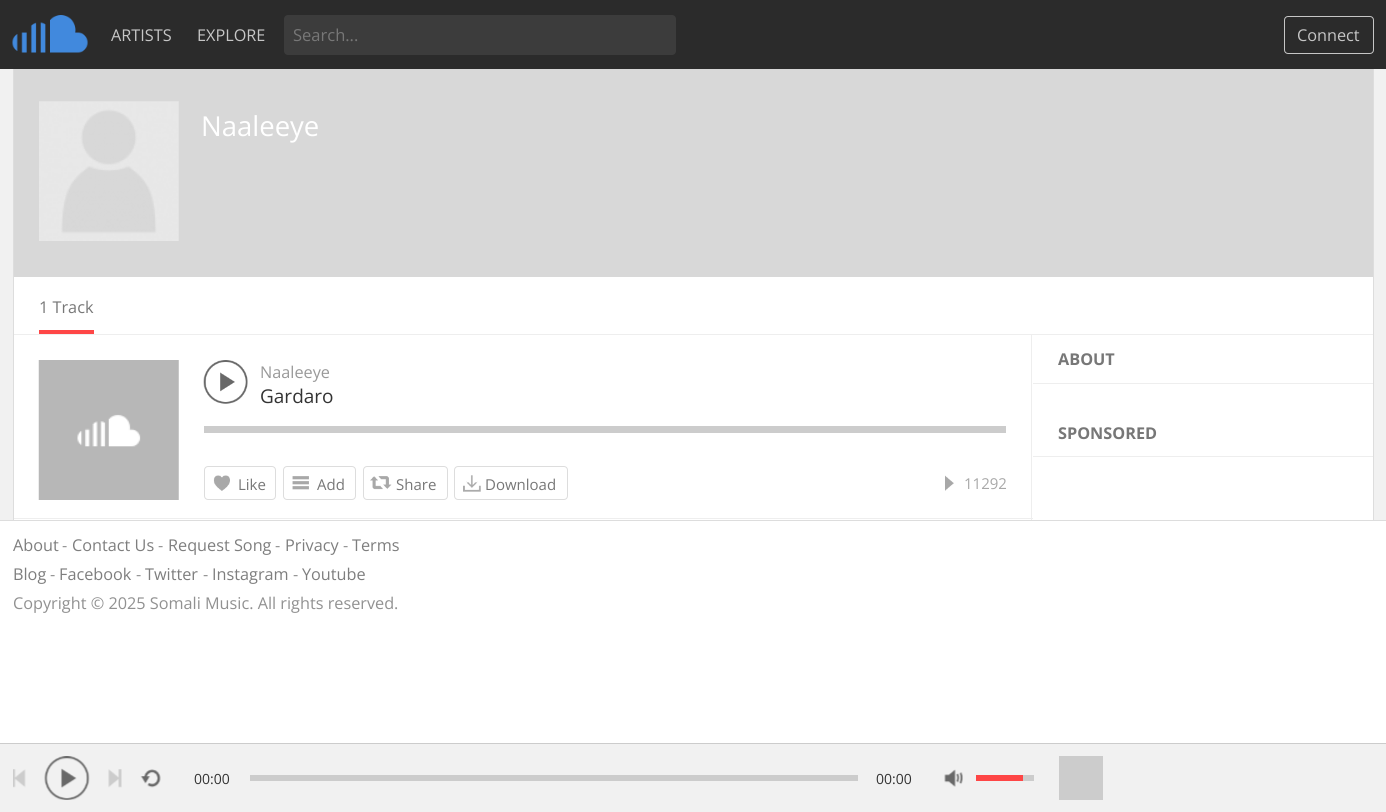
#include <cairo.h>
#include <math.h>
#include <stddef.h>

static cairo_t *c;
static void C(unsigned color){cairo_set_source_rgb(c, (color >> 16) / 255.0, (color >> 8 & 255) / 255.0, (color & 255) / 255.0);}
static void F(const char *family, double size, int italic, int bold){cairo_select_font_face(c, family, italic ? CAIRO_FONT_SLANT_ITALIC : CAIRO_FONT_SLANT_NORMAL,bold ? CAIRO_FONT_WEIGHT_BOLD : CAIRO_FONT_WEIGHT_NORMAL);cairo_set_font_size(c, size);}
static void T(double x, double y, const char *s){cairo_move_to(c, x, y);cairo_show_text(c, s);}
static void R(double x, double y, double w, double h){cairo_rectangle(c, x, y, w, h);cairo_fill(c);}
static void Q(double x, double y, double w, double h, double r){cairo_new_sub_path(c);cairo_arc(c, x + w - r, y + h - r, r, 0, M_PI / 2);cairo_arc(c, x + r, y + h - r, r, M_PI / 2, M_PI);cairo_arc(c, x + r, y + r, r, M_PI, 1.5 * M_PI);cairo_arc(c, x + w - r, y + r, r, 1.5 * M_PI, 2 * M_PI);cairo_close_path(c);}
static void I(const char *path, double x, double y, double w, double h){cairo_surface_t *image = cairo_image_surface_create_from_png(path);cairo_save(c);cairo_set_source_surface(c, image, x, y);cairo_rectangle(c, x, y, w, h);cairo_fill(c);cairo_restore(c);cairo_surface_destroy(image);}
int main(void) {
cairo_surface_t *surface = cairo_image_surface_create(CAIRO_FORMAT_RGB24, 1386, 812);
c = cairo_create(surface);
cairo_font_options_t *options = cairo_font_options_create();
cairo_font_options_set_hint_metrics(options, CAIRO_HINT_METRICS_OFF);
cairo_font_options_set_hint_style(options, CAIRO_HINT_STYLE_NONE);
cairo_set_font_options(c, options);
cairo_set_miter_limit(c, 4);
C(0xffffff);
cairo_paint(c);
C(0x2b2b2b);
R(0,0,1386,69);
I("1.png",12,15,76,38);
F("Open Sans",16.25,0,0);
C(0xc6c6c6);
T(111,41,"ARTISTS");
T(197,41,"EXPLORE");
C(0x3c3c3c);
Q(284,15,392,40,4);
cairo_fill(c);
F("Open Sans",16.5,0,0);
C(0x777777);
T(293,41,"Search...");
Q(1284.5,16.5,89,37,3.5);
C(0xc6c6c6);
cairo_set_line_width(c,1);
cairo_stroke(c);
F("Open Sans",16.25,0,0);
T(1297,41,"Connect");
C(0xf1f1f1);
R(0,69,1386,451);
C(0xdddddd);
R(0,520,1386,1);
C(0xffffff);
R(14,277,1359,243);
C(0xdddddd);
R(1373,69,1,451);
R(13,69,1,451);
C(0xeeeeee);
R(14,334,1359,1);
C(0xd8d8d8);
R(14,69,1359,208);
I("2.png",39,101,140,140);
F("Open Sans",27.5,0,0);
C(0xffffff);
T(201,136,"Naaleeye");
C(0xfe4646);
R(39,330,55,4);
F("Open Sans",16.25,0,0);
C(0x777777);
T(39,313,"1 Track");
C(0xeeeeee);
R(1031,335,1,74);
R(14,518,1019,1);
I("3.png",38,360,141,140);
I("4.png",203,360,45,44);
C(0x999999);
T(260,378,"Naaleeye");
F("Open Sans",19,0,0);
C(0x333333);
T(260,403,"Gardaro");
C(0xcccccc);
R(204,426,802,7);
I("5.png",213,475,17,16);
Q(204.5,466.5,71,33,3.5);
C(0xdddddd);
cairo_stroke(c);
F("Open Sans",15,0,0);
C(0x777777);
T(238,490,"Like");
I("6.png",292,476,17,14);
Q(283.5,466.5,72,33,3.5);
C(0xdddddd);
cairo_stroke(c);
C(0x777777);
T(317,490,"Add");
I("7.png",370,476,22,14);
Q(363.5,466.5,84,33,3.5);
C(0xdddddd);
cairo_stroke(c);
C(0x777777);
T(396,490,"Share");
I("8.png",463,475,18,17);
Q(454.5,466.5,113,33,3.5);
C(0xdddddd);
cairo_stroke(c);
C(0x777777);
T(485,490,"Download");
I("9.png",945,475,9,16);
C(0xa8a8a8);
T(964,489,"11292");
C(0xeeeeee);
R(1033,383,340,1);
F("Open Sans",16.25,0,1);
C(0x777777);
T(1058,365,"ABOUT");
C(0xeeeeee);
R(1031,409,1,111);
R(1033,456,340,1);
C(0x777777);
T(1058,439,"SPONSORED");
F("Open Sans",16.25,0,0);
C(0x7e7e7e);
T(13,551,"About");
C(0x919191);
T(62,551,"-");
C(0x7e7e7e);
T(72,551,"Contact Us");
C(0x919191);
T(158,551,"-");
C(0x7e7e7e);
T(168,551,"Request Song");
C(0x919191);
T(275,551,"-");
C(0x7e7e7e);
T(285,551,"Privacy");
C(0x919191);
T(343,551,"-");
C(0x7e7e7e);
T(352,551,"Terms");
T(13,580,"Blog");
C(0x919191);
T(50,580,"-");
C(0x7e7e7e);
T(59,580,"Facebook");
C(0x919191);
T(136,580,"-");
C(0x7e7e7e);
T(145,580,"Twitter");
C(0x919191);
T(203,580,"-");
C(0x7e7e7e);
T(212,580,"Instagram");
C(0x919191);
T(293,580,"-");
C(0x7e7e7e);
T(302,580,"Youtube");
C(0x919191);
T(13,609,"Copyright © 2025 Somali Music. All rights reserved.");
C(0xf1f1f1);
R(0,744,1386,68);
C(0xcccccc);
R(0,743,1386,1);
I("10.png",13,769,13,19);
I("11.png",44,756,46,44);
I("12.png",108,769,14,19);
I("13.png",140,769,21,19);
F("Open Sans",14,0,0);
C(0x333333);
T(194,784,"00:00");
C(0xcccccc);
R(250,775,608,6);
C(0x333333);
T(876,784,"00:00");
I("14.png",944,769,19,18);
C(0xcccccc);
R(1023,775,11,6);
C(0xfe4646);
R(976,775,47,6);
C(0xcccccc);
R(1059,756,44,44);
cairo_surface_write_to_png(surface, "o.png");
cairo_font_options_destroy(options);
cairo_destroy(c);
cairo_surface_destroy(surface);
return 0;
}
